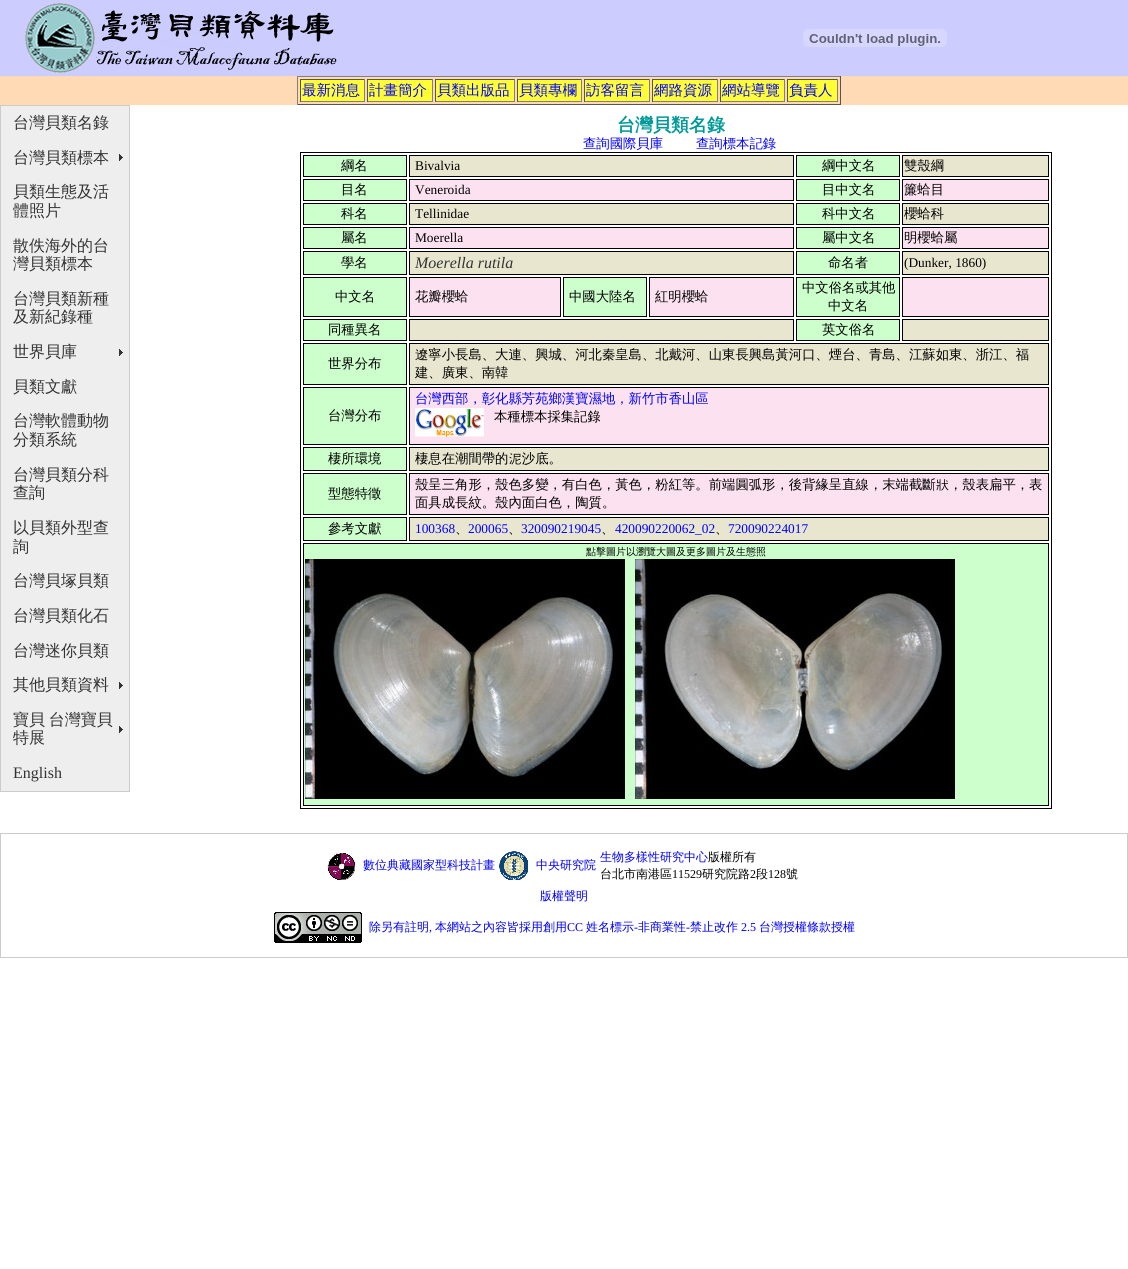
#include <cairo.h>
#include <math.h>
#include <stddef.h>

static cairo_t *c;
static void C(unsigned color){cairo_set_source_rgb(c, (color >> 16) / 255.0, (color >> 8 & 255) / 255.0, (color & 255) / 255.0);}
static void F(const char *family, double size, int italic, int bold){cairo_select_font_face(c, family, italic ? CAIRO_FONT_SLANT_ITALIC : CAIRO_FONT_SLANT_NORMAL,bold ? CAIRO_FONT_WEIGHT_BOLD : CAIRO_FONT_WEIGHT_NORMAL);cairo_set_font_size(c, size);}
static void T(double x, double y, const char *s){cairo_move_to(c, x, y);cairo_show_text(c, s);}
static void L(double x, double y, const char *s, double letter, double word){cairo_move_to(c, x, y);while (*s) {char ch[5] = {0};int n = 0;do ch[n++] = *s++; while ((*s & 0xC0) == 0x80);cairo_show_text(c, ch);cairo_rel_move_to(c, letter + word * (*ch == ' '), 0);}}
static void R(double x, double y, double w, double h){cairo_rectangle(c, x, y, w, h);cairo_fill(c);}
static void I(const char *path, double x, double y, double w, double h){cairo_surface_t *image = cairo_image_surface_create_from_png(path);cairo_save(c);cairo_set_source_surface(c, image, x, y);cairo_rectangle(c, x, y, w, h);cairo_fill(c);cairo_restore(c);cairo_surface_destroy(image);}
int main(void) {
cairo_surface_t *surface = cairo_image_surface_create(CAIRO_FORMAT_RGB24, 1128, 1269);
c = cairo_create(surface);
cairo_font_options_t *options = cairo_font_options_create();
cairo_font_options_set_hint_metrics(options, CAIRO_HINT_METRICS_OFF);
cairo_font_options_set_hint_style(options, CAIRO_HINT_STYLE_NONE);
cairo_set_font_options(c, options);
cairo_set_miter_limit(c, 4);
C(0xffffff);
cairo_paint(c);
C(0xccccff);
R(0,0,1128,76);
I("1.png",25,3,312,70);
I("2.png",803,29,144,18);
C(0xffdab5);
R(0,76,1128,29);
C(0x808080);
R(297,76,544,1);
C(0x555555);
R(840,76,1,29);
R(297,104,544,1);
C(0x808080);
R(297,76,1,29);
C(0xffff33);
R(301,80,63,21);
C(0x555555);
R(300,79,65,1);
C(0x808080);
R(364,79,1,23);
R(300,101,65,1);
C(0x555555);
R(300,79,1,23);
F("WenQuanYi Zen Hei Medium",14.5,0,0);
C(0x0000ff);
T(302,95,"最新消息");
C(0xffff33);
R(368,80,64,21);
C(0x555555);
R(367,79,66,1);
C(0x808080);
R(432,79,1,23);
R(367,101,66,1);
C(0x555555);
R(367,79,1,23);
C(0x0000ff);
T(369,95,"計畫簡介");
C(0xffff33);
R(436,80,78,21);
C(0x555555);
R(435,79,80,1);
C(0x808080);
R(514,79,1,23);
R(435,101,80,1);
C(0x555555);
R(435,79,1,23);
C(0x0000ff);
T(437,95,"貝類出版品");
C(0xffff33);
R(518,80,63,21);
C(0x555555);
R(517,79,65,1);
C(0x808080);
R(581,79,1,23);
R(517,101,65,1);
C(0x555555);
R(517,79,1,23);
C(0x0000ff);
T(519,95,"貝類專欄");
C(0xffff33);
R(585,80,64,21);
C(0x555555);
R(584,79,66,1);
C(0x808080);
R(649,79,1,23);
R(584,101,66,1);
C(0x555555);
R(584,79,1,23);
C(0x0000ff);
T(586,95,"訪客留言");
C(0xffff33);
R(653,80,64,21);
C(0x555555);
R(652,79,66,1);
C(0x808080);
R(717,79,1,23);
R(652,101,66,1);
C(0x555555);
R(652,79,1,23);
C(0x0000ff);
T(654,95,"網路資源");
C(0xffff33);
R(721,80,63,21);
C(0x555555);
R(720,79,65,1);
C(0x808080);
R(784,79,1,23);
R(720,101,65,1);
C(0x555555);
R(720,79,1,23);
C(0x0000ff);
T(722,95,"網站導覽");
C(0xffff33);
R(788,80,49,21);
C(0x555555);
R(787,79,51,1);
C(0x808080);
R(837,79,1,23);
R(787,101,51,1);
C(0x555555);
R(787,79,1,23);
C(0x0000ff);
T(789,95,"負責人");
cairo_rectangle(c,.5,105.5,129,686);
C(0xcccccc);
cairo_set_line_width(c,1);
cairo_stroke(c);
C(0xeeeeee);
R(1,106,128,685);
F("WenQuanYi Zen Hei Medium",16,0,0);
C(0x333333);
T(13,128,"台灣貝類名錄");
I("3.png",119,154,4,7);
T(13,163,"台灣貝類標本");
T(13,197,"貝類生態及活");
T(13,216,"體照片");
T(13,251,"散佚海外的台");
T(13,269,"灣貝類標本");
T(13,304,"台灣貝類新種");
T(13,322,"及新紀錄種");
I("3.png",119,349,4,7);
T(13,357,"世界貝庫");
T(13,392,"貝類文獻");
T(13,426,"台灣軟體動物");
T(13,445,"分類系統");
T(13,480,"台灣貝類分科");
T(13,498,"查詢");
T(13,533,"以貝類外型查");
T(13,552,"詢");
T(13,586,"台灣貝塚貝類");
T(13,621,"台灣貝類化石");
T(13,656,"台灣迷你貝類");
I("3.png",119,682,4,7);
T(13,690,"其他貝類資料");
I("3.png",119,726,4,7);
L(13,725,"寶貝 台灣寶貝",0,-1);
T(13,743,"特展");
F("Liberation Serif",16,0,0);
T(13,778,"English");
F("WenQuanYi Zen Hei",18,0,1);
C(0x009999);
T(617,131,"台灣貝類名錄");
F("WenQuanYi Zen Hei Medium",13.35,0,0);
C(0x0000ff);
T(583,148,"查詢國際貝庫");
T(696,148,"查詢標本記錄");
cairo_rectangle(c,300.5,152.5,751,656);
C(0x000000);
cairo_stroke(c);
C(0xccffcc);
cairo_rectangle(c,303.5,155.5,103,21);
cairo_fill_preserve(c);
C(0x000000);
cairo_stroke(c);
T(341,170,"綱名");
C(0xe9e6cf);
cairo_rectangle(c,409.5,155.5,384,21);
cairo_fill_preserve(c);
C(0x000000);
cairo_stroke(c);
F("Liberation Serif",13.35,0,0);
T(415,170,"Bivalvia");
C(0xccffcc);
cairo_rectangle(c,796.5,155.5,103,21);
cairo_fill_preserve(c);
C(0x000000);
cairo_stroke(c);
F("WenQuanYi Zen Hei Medium",13.35,0,0);
T(822,170,"綱中文名");
C(0xe9e6cf);
cairo_rectangle(c,902.5,155.5,146,21);
cairo_fill_preserve(c);
C(0x000000);
cairo_stroke(c);
T(904,170,"雙殼綱");
C(0xccffcc);
cairo_rectangle(c,303.5,179.5,103,21);
cairo_fill_preserve(c);
C(0x000000);
cairo_stroke(c);
T(341,194,"目名");
C(0xfce2f0);
cairo_rectangle(c,409.5,179.5,384,21);
cairo_fill_preserve(c);
C(0x000000);
cairo_stroke(c);
F("Liberation Serif",13.35,0,0);
T(415,194,"Veneroida");
C(0xccffcc);
cairo_rectangle(c,796.5,179.5,103,21);
cairo_fill_preserve(c);
C(0x000000);
cairo_stroke(c);
F("WenQuanYi Zen Hei Medium",13.35,0,0);
T(822,194,"目中文名");
C(0xfce2f0);
cairo_rectangle(c,902.5,179.5,146,21);
cairo_fill_preserve(c);
C(0x000000);
cairo_stroke(c);
T(904,194,"簾蛤目");
C(0xccffcc);
cairo_rectangle(c,303.5,203.5,103,21);
cairo_fill_preserve(c);
C(0x000000);
cairo_stroke(c);
T(341,218,"科名");
C(0xe9e6cf);
cairo_rectangle(c,409.5,203.5,384,21);
cairo_fill_preserve(c);
C(0x000000);
cairo_stroke(c);
F("Liberation Serif",13.35,0,0);
T(415,218,"Tellinidae");
C(0xccffcc);
cairo_rectangle(c,796.5,203.5,103,21);
cairo_fill_preserve(c);
C(0x000000);
cairo_stroke(c);
F("WenQuanYi Zen Hei Medium",13.35,0,0);
T(822,218,"科中文名");
C(0xe9e6cf);
cairo_rectangle(c,902.5,203.5,146,21);
cairo_fill_preserve(c);
C(0x000000);
cairo_stroke(c);
T(904,218,"櫻蛤科");
C(0xccffcc);
cairo_rectangle(c,303.5,227.5,103,21);
cairo_fill_preserve(c);
C(0x000000);
cairo_stroke(c);
T(341,242,"屬名");
C(0xfce2f0);
cairo_rectangle(c,409.5,227.5,384,21);
cairo_fill_preserve(c);
C(0x000000);
cairo_stroke(c);
F("Liberation Serif",13.35,0,0);
T(415,242,"Moerella");
C(0xccffcc);
cairo_rectangle(c,796.5,227.5,103,21);
cairo_fill_preserve(c);
C(0x000000);
cairo_stroke(c);
F("WenQuanYi Zen Hei Medium",13.35,0,0);
T(822,242,"屬中文名");
C(0xfce2f0);
cairo_rectangle(c,902.5,227.5,146,21);
cairo_fill_preserve(c);
C(0x000000);
cairo_stroke(c);
T(904,242,"明櫻蛤屬");
C(0xccffcc);
cairo_rectangle(c,303.5,251.5,103,23);
cairo_fill_preserve(c);
C(0x000000);
cairo_stroke(c);
T(341,267,"學名");
C(0xe9e6cf);
cairo_rectangle(c,409.5,251.5,384,23);
cairo_fill_preserve(c);
C(0x000000);
cairo_stroke(c);
F("Liberation Serif",16,1,0);
C(0x333333);
T(415,268,"Moerella rutila");
C(0xccffcc);
cairo_rectangle(c,796.5,251.5,103,23);
cairo_fill_preserve(c);
C(0x000000);
cairo_stroke(c);
F("WenQuanYi Zen Hei Medium",13.35,0,0);
T(828,267,"命名者");
C(0xe9e6cf);
cairo_rectangle(c,902.5,251.5,146,23);
cairo_fill_preserve(c);
C(0x000000);
cairo_stroke(c);
F("Liberation Serif",13.35,0,0);
T(904,267,"(Dunker, 1860)");
C(0xccffcc);
cairo_rectangle(c,303.5,277.5,103,39);
cairo_fill_preserve(c);
C(0x000000);
cairo_stroke(c);
F("WenQuanYi Zen Hei Medium",13.35,0,0);
T(335,301,"中文名");
C(0xfce2f0);
cairo_rectangle(c,409.5,277.5,151,39);
cairo_fill_preserve(c);
C(0x000000);
cairo_stroke(c);
T(415,301,"花瓣櫻蛤");
C(0xccffcc);
cairo_rectangle(c,563.5,277.5,83,39);
cairo_fill_preserve(c);
C(0x000000);
cairo_stroke(c);
T(569,301,"中國大陸名");
C(0xfce2f0);
cairo_rectangle(c,649.5,277.5,144,39);
cairo_fill_preserve(c);
C(0x000000);
cairo_stroke(c);
T(655,301,"紅明櫻蛤");
C(0xccffcc);
cairo_rectangle(c,796.5,277.5,103,39);
cairo_fill_preserve(c);
C(0x000000);
cairo_stroke(c);
T(802,292,"中文俗名或其他");
T(828,310,"中文名");
C(0xfce2f0);
cairo_rectangle(c,902.5,277.5,146,39);
cairo_fill_preserve(c);
C(0x000000);
cairo_stroke(c);
C(0xccffcc);
cairo_rectangle(c,303.5,319.5,103,21);
cairo_fill_preserve(c);
C(0x000000);
cairo_stroke(c);
T(328,334,"同種異名");
C(0xe9e6cf);
cairo_rectangle(c,409.5,319.5,384,21);
cairo_fill_preserve(c);
C(0x000000);
cairo_stroke(c);
C(0xccffcc);
cairo_rectangle(c,796.5,319.5,103,21);
cairo_fill_preserve(c);
C(0x000000);
cairo_stroke(c);
T(822,334,"英文俗名");
C(0xe9e6cf);
cairo_rectangle(c,902.5,319.5,146,21);
cairo_fill_preserve(c);
C(0x000000);
cairo_stroke(c);
C(0xccffcc);
cairo_rectangle(c,303.5,343.5,103,41);
cairo_fill_preserve(c);
C(0x000000);
cairo_stroke(c);
T(328,368,"世界分布");
C(0xe9e6cf);
cairo_rectangle(c,409.5,343.5,639,41);
cairo_fill_preserve(c);
C(0x000000);
cairo_stroke(c);
T(415,359,"遼寧小長島、大連、興城、河北秦皇島、北戴河、山東長興島黃河口、煙台、青島、江蘇如東、浙江、福");
T(415,377,"建、廣東、南韓");
C(0xccffcc);
cairo_rectangle(c,303.5,387.5,103,57);
cairo_fill_preserve(c);
C(0x000000);
cairo_stroke(c);
T(328,420,"台灣分布");
C(0xfce2f0);
cairo_rectangle(c,409.5,387.5,639,57);
cairo_fill_preserve(c);
C(0x000000);
cairo_stroke(c);
C(0x0000ff);
T(415,403,"台灣西部，彰化縣芳苑鄉漢寶濕地，新竹市香山區");
I("4.png",415,408,69,29);
C(0x000000);
T(494,421,"本種標本採集記錄");
C(0xccffcc);
cairo_rectangle(c,303.5,447.5,103,23);
cairo_fill_preserve(c);
C(0x000000);
cairo_stroke(c);
T(328,463,"棲所環境");
C(0xe9e6cf);
cairo_rectangle(c,409.5,447.5,639,23);
cairo_fill_preserve(c);
C(0x000000);
cairo_stroke(c);
T(415,463,"棲息在潮間帶的泥沙底。");
C(0xccffcc);
cairo_rectangle(c,303.5,473.5,103,41);
cairo_fill_preserve(c);
C(0x000000);
cairo_stroke(c);
T(328,498,"型態特徵");
C(0xfce2f0);
cairo_rectangle(c,409.5,473.5,639,41);
cairo_fill_preserve(c);
C(0x000000);
cairo_stroke(c);
T(415,489,"殼呈三角形，殼色多變，有白色，黃色，粉紅等。前端圓弧形，後背緣呈直線，末端截斷狀，殼表扁平，表");
T(415,507,"面具成長紋。殼內面白色，陶質。");
C(0xccffcc);
cairo_rectangle(c,303.5,517.5,103,23);
cairo_fill_preserve(c);
C(0x000000);
cairo_stroke(c);
T(328,533,"參考文獻");
C(0xe9e6cf);
cairo_rectangle(c,409.5,517.5,639,23);
cairo_fill_preserve(c);
C(0x000000);
cairo_stroke(c);
F("Liberation Serif",13.35,0,0);
C(0x0000ff);
T(415,533,"100368");
F("WenQuanYi Zen Hei Medium",13.35,0,0);
C(0x000000);
T(455,533,"、");
F("Liberation Serif",13.35,0,0);
C(0x0000ff);
T(468,533,"200065");
F("WenQuanYi Zen Hei Medium",13.35,0,0);
C(0x000000);
T(508,533,"、");
F("Liberation Serif",13.35,0,0);
C(0x0000ff);
T(521,533,"320090219045");
F("WenQuanYi Zen Hei Medium",13.35,0,0);
C(0x000000);
T(601,533,"、");
F("Liberation Serif",13.35,0,0);
C(0x0000ff);
T(615,533,"420090220062_02");
F("WenQuanYi Zen Hei Medium",13.35,0,0);
C(0x000000);
T(715,533,"、");
F("Liberation Serif",13.35,0,0);
C(0x0000ff);
T(728,533,"720090224017");
C(0xccffcc);
cairo_rectangle(c,303.5,543.5,745,262);
cairo_fill_preserve(c);
C(0x000000);
cairo_stroke(c);
F("WenQuanYi Zen Hei Medium",10,0,0);
T(586,555,"點擊圖片以瀏覽大圖及更多圖片及生態照");
I("5.png",305,559,320,240);
I("6.png",635,559,320,240);
cairo_rectangle(c,.5,833.5,1127,124);
C(0xcccccc);
cairo_stroke(c);
I("7.png",327,853,28,27);
F("WenQuanYi Zen Hei Medium",12,0,0);
C(0x0000ff);
T(363,869,"數位典藏國家型科技計畫");
I("8.png",499,851,29,29);
T(536,869,"中央研究院");
T(600,861,"生物多樣性研究中心");
C(0x000000);
T(708,861,"版權所有");
T(600,878,"台北市南港區");
F("Liberation Serif",12,0,0);
T(672,878,"11529");
F("WenQuanYi Zen Hei Medium",12,0,0);
T(702,878,"研究院路");
F("Liberation Serif",12,0,0);
T(750,878,"2");
F("WenQuanYi Zen Hei Medium",12,0,0);
T(756,878,"段");
F("Liberation Serif",12,0,0);
T(768,878,"128");
F("WenQuanYi Zen Hei Medium",12,0,0);
T(786,878,"號");
C(0x0000ff);
T(540,900,"版權聲明");
I("9.png",274,912,88,31);
T(369,931,"除另有註明");
T(435,931,"本網站之內容皆採用創用");
F("Liberation Serif",12,0,0);
T(567,931,"CC");
F("WenQuanYi Zen Hei Medium",12,0,0);
T(586,931,"姓名標示");
F("Liberation Serif",12,0,0);
T(634,931,"-");
F("WenQuanYi Zen Hei Medium",12,0,0);
T(638,931,"非商業性");
F("Liberation Serif",12,0,0);
T(686,931,"-");
F("WenQuanYi Zen Hei Medium",12,0,0);
T(690,931,"禁止改作");
F("Liberation Serif",12,0,0);
T(741,931,"2.5");
F("WenQuanYi Zen Hei Medium",12,0,0);
T(759,931,"台灣授權條款授權");
F("Liberation Serif",12,0,0);
T(429,931,",");
cairo_surface_write_to_png(surface, "o.png");
cairo_font_options_destroy(options);
cairo_destroy(c);
cairo_surface_destroy(surface);
return 0;
}
